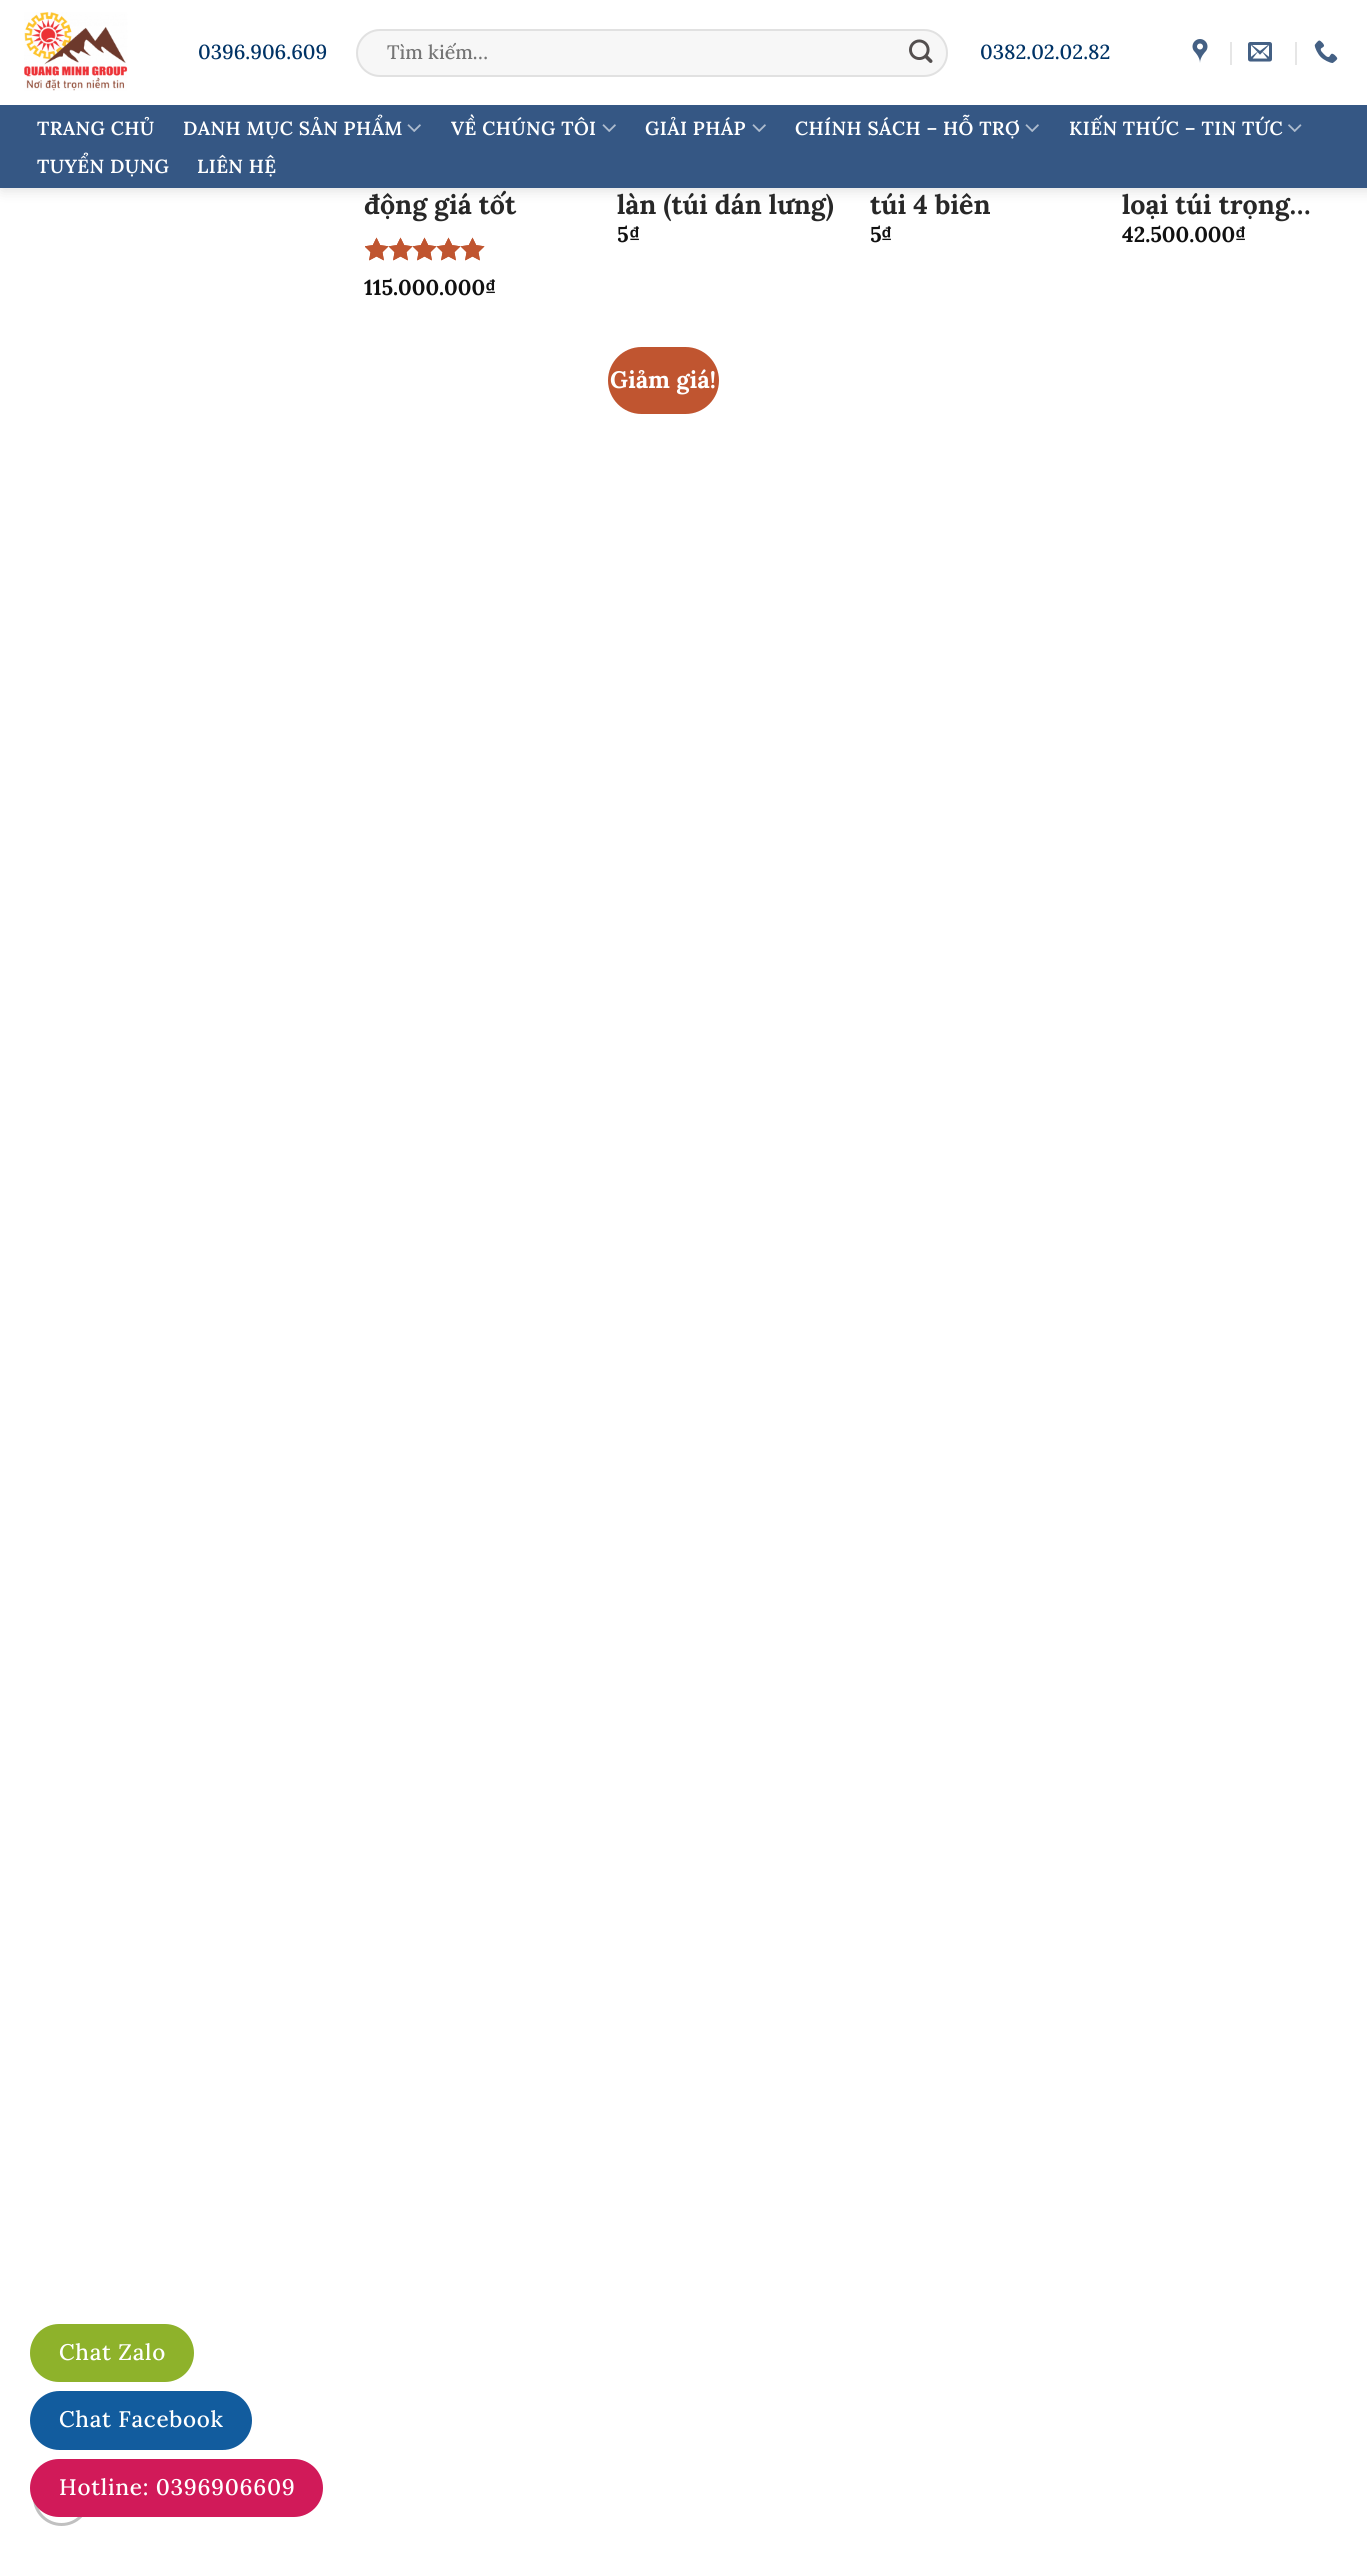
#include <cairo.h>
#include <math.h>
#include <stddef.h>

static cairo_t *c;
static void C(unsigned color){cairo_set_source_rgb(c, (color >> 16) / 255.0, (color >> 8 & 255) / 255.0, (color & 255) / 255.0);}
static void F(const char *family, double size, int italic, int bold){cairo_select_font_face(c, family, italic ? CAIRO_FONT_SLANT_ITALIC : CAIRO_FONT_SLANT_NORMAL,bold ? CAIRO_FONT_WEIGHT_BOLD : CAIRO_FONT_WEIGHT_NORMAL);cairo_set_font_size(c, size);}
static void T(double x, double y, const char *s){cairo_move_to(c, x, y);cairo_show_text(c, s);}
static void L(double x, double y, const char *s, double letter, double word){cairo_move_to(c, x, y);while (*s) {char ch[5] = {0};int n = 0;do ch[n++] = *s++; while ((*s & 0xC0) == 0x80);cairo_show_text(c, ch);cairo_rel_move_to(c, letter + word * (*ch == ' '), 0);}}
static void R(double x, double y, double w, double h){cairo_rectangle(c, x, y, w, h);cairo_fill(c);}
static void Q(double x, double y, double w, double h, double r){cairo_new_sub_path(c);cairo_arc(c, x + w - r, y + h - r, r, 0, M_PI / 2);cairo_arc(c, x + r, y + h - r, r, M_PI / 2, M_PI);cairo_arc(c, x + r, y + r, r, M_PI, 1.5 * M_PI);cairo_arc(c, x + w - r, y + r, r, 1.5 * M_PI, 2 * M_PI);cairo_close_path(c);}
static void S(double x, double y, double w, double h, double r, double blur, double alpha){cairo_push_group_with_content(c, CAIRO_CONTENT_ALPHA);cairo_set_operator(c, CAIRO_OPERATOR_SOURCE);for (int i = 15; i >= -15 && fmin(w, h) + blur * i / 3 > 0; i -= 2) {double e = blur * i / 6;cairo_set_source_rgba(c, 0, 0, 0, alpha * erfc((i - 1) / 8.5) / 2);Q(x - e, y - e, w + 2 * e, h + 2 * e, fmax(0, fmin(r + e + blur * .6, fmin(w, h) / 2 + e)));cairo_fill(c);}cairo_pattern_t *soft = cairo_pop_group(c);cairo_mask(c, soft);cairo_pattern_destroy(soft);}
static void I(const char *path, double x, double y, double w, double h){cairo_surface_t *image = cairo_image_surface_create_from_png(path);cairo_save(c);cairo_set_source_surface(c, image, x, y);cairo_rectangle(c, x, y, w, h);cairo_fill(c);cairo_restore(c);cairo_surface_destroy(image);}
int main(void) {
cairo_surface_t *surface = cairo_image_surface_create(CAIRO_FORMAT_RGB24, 1367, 2556);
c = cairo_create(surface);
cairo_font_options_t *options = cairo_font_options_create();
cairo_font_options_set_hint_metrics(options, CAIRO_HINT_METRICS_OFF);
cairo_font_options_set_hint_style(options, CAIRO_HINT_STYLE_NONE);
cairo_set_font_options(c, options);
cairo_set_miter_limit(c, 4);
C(0xffffff);
cairo_paint(c);
C(0x000000);
S(2,2,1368,187,0,7.5,.15);
C(0xffffff);
R(0,0,1367,105);
I("1.png",24,12,104,79);
F("Lora Medium",20.25,0,0);
C(0x003366);
T(198,59,"0396.906.609");
C(0xf7f7f7);
Q(356,29,592,48,24);
cairo_fill(c);
Q(357,30,590,46,23);
cairo_set_source_rgba(c,0,0,0,0.09);
cairo_stroke(c);
F("Lora Medium",19.5,0,0);
C(0x757575);
T(387,59,"Tìm kiếm…");
I("2.png",909,39,24,24);
F("Lora Medium",20.25,0,0);
C(0x003366);
T(980,59,"0382.02.02.82");
I("3.png",1192,39,16,24);
C(0xe6e6e6);
R(1230,42,2,23);
I("4.png",1248,42,24,20);
R(1295,42,2,23);
I("5.png",1314,40,24,23);
C(0x355784);
R(0,105,1367,83);
F("Lora SemiBold",19,0,0);
C(0xffffff);
L(37,135,"TRANG CHỦ",.4,0);
L(183,135,"DANH MỤC SẢN PHẨM",.4,0);
I("6.png",407,124,14,8);
L(451,135,"VỀ CHÚNG TÔI",.4,0);
I("6.png",602,124,14,8);
L(645,135,"GIẢI PHÁP",.4,0);
I("6.png",752,124,14,8);
L(795,135,"CHÍNH SÁCH – HỖ TRỢ",.4,0);
I("6.png",1025,124,14,8);
L(1069,135,"KIẾN THỨC – TIN TỨC",.4,0);
I("7.png",1288,124,14,8);
L(37,173,"TUYỂN DỤNG",.4,0);
L(197,173,"LIÊN HỆ",.4,0);
F("Lora",26.75,0,1);
C(0x282828);
T(364,214,"động giá tốt");
I("8.png",365,237,120,24);
I("9.png",365,237,120,24);
F("Lora",21.5,0,1);
C(0x111111);
T(364,295,"115.000.000");
F("Liberation Sans",21.5,0,1);
T(485,295,"₫");
F("Lora",26.75,0,1);
C(0x282828);
T(617,214,"làn (túi dán lưng)");
F("Lora",21.5,0,1);
C(0x111111);
T(617,242,"5");
F("Liberation Sans",21.5,0,1);
T(629,242,"₫");
F("Lora",26.75,0,1);
C(0x282828);
T(870,214,"túi 4 biên");
F("Lora",21.5,0,1);
C(0x111111);
T(870,242,"5");
F("Liberation Sans",21.5,0,1);
T(881,242,"₫");
F("Lora",26.75,0,1);
C(0x282828);
T(1122,214,"loại túi trọng…");
F("Lora",21.5,0,1);
C(0x111111);
T(1122,242,"42.500.000");
F("Liberation Sans",21.5,0,1);
T(1235,242,"₫");
C(0xc05530);
Q(608,347,111,67,33.5);
cairo_fill(c);
F("Lora",23.75,0,1);
C(0xffffff);
T(610,388,"Giảm giá!");
cairo_new_path(c);
cairo_arc(c,61.5,2497.5,27,0,2 * M_PI);
C(0xc0c0c0);
cairo_set_line_width(c,3);
cairo_stroke(c);
C(0x8eb22b);
Q(30,2324,164,58,29);
cairo_fill(c);
F("Lora Medium",22.5,0,0);
C(0xffffff);
L(59,2360,"Chat Zalo",.7,0);
C(0x125c9e);
Q(30,2391,222,59,29.5);
cairo_fill(c);
C(0xffffff);
L(59,2427,"Chat Facebook",.7,0);
C(0xd11a59);
Q(30,2459,293,58,29);
cairo_fill(c);
C(0xffffff);
L(59,2495,"Hotline: 0396906609",.7,0);
cairo_surface_write_to_png(surface, "o.png");
cairo_font_options_destroy(options);
cairo_destroy(c);
cairo_surface_destroy(surface);
return 0;
}
